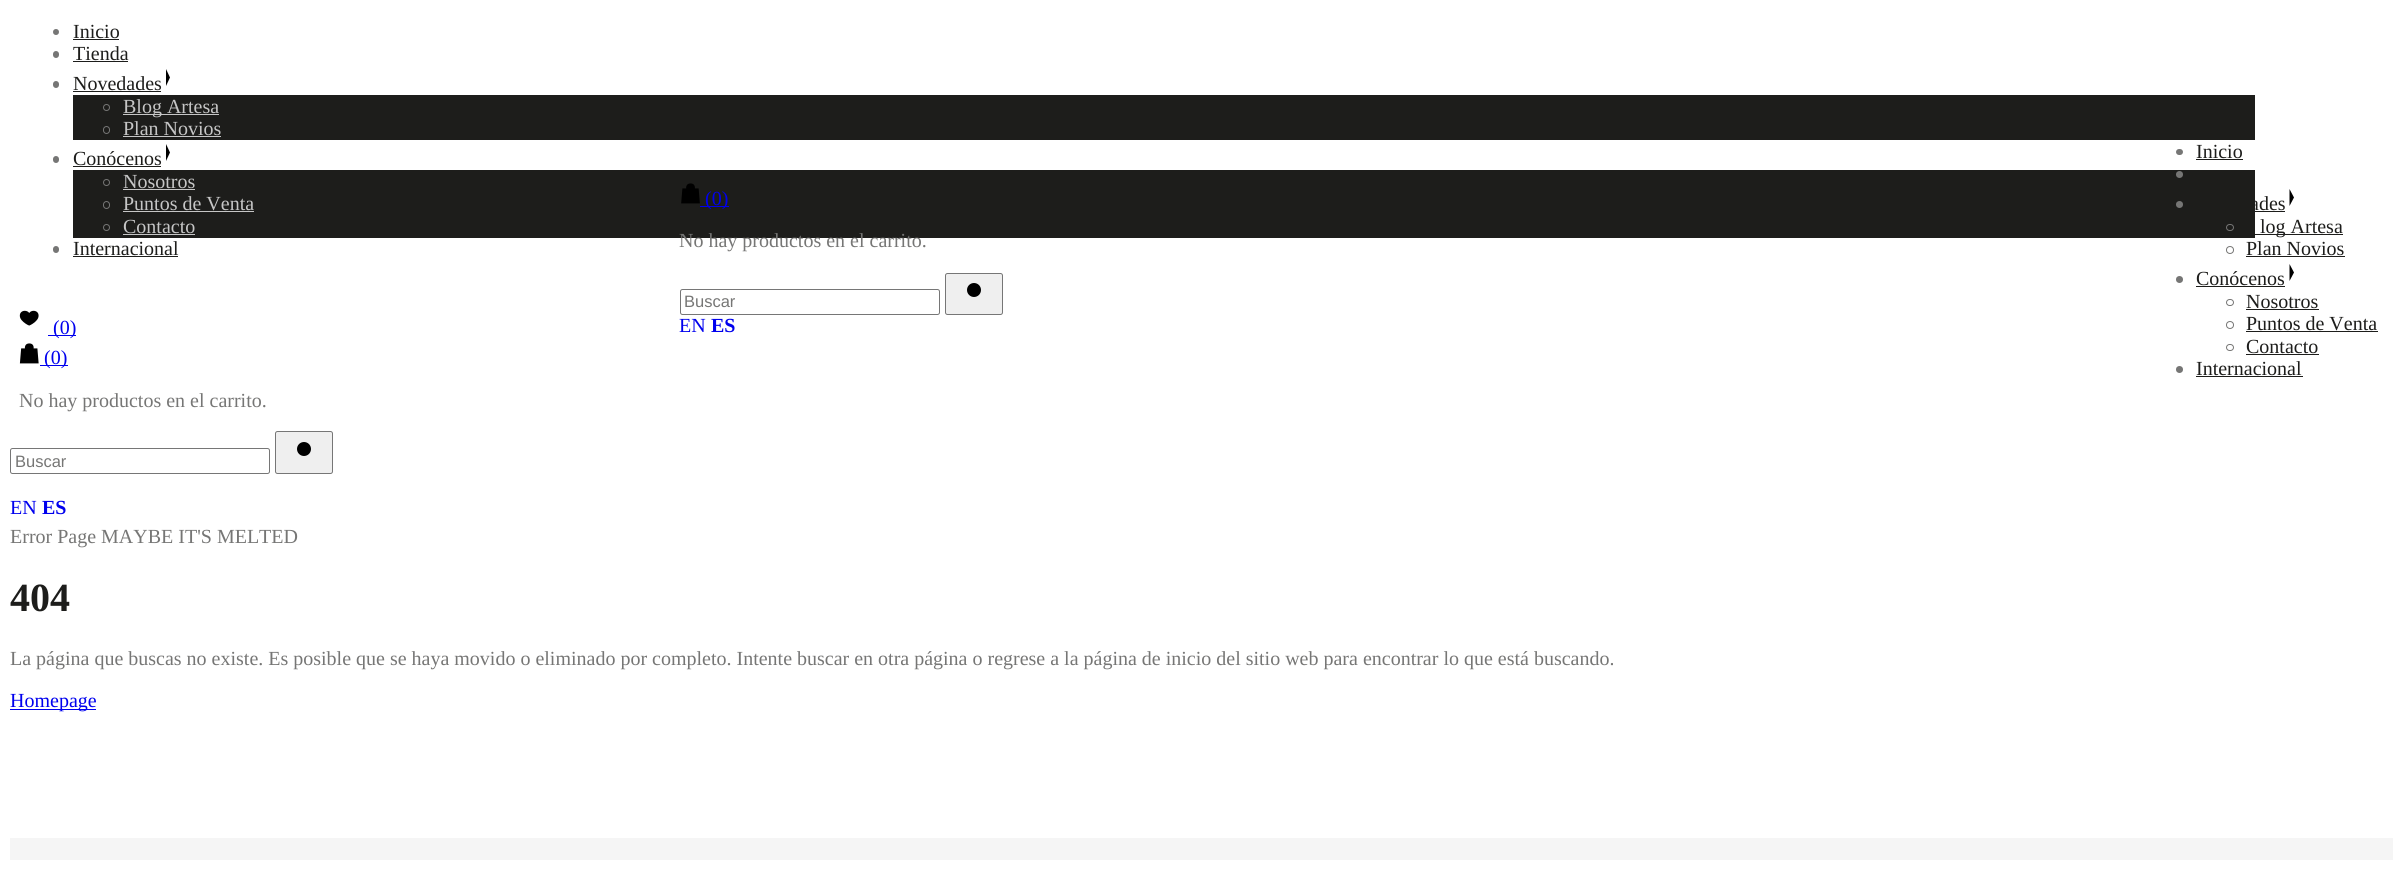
#include <cairo.h>
#include <math.h>
#include <stddef.h>

static cairo_t *c;
static void C(unsigned color){cairo_set_source_rgb(c, (color >> 16) / 255.0, (color >> 8 & 255) / 255.0, (color & 255) / 255.0);}
static void F(const char *family, double size, int italic, int bold){cairo_select_font_face(c, family, italic ? CAIRO_FONT_SLANT_ITALIC : CAIRO_FONT_SLANT_NORMAL,bold ? CAIRO_FONT_WEIGHT_BOLD : CAIRO_FONT_WEIGHT_NORMAL);cairo_set_font_size(c, size);}
static void T(double x, double y, const char *s){cairo_move_to(c, x, y);cairo_show_text(c, s);}
static void R(double x, double y, double w, double h){cairo_rectangle(c, x, y, w, h);cairo_fill(c);}
static void Q(double x, double y, double w, double h, double r){cairo_new_sub_path(c);cairo_arc(c, x + w - r, y + h - r, r, 0, M_PI / 2);cairo_arc(c, x + r, y + h - r, r, M_PI / 2, M_PI);cairo_arc(c, x + r, y + r, r, M_PI, 1.5 * M_PI);cairo_arc(c, x + w - r, y + r, r, 1.5 * M_PI, 2 * M_PI);cairo_close_path(c);}
static void I(const char *path, double x, double y, double w, double h){cairo_surface_t *image = cairo_image_surface_create_from_png(path);cairo_save(c);cairo_set_source_surface(c, image, x, y);cairo_rectangle(c, x, y, w, h);cairo_fill(c);cairo_restore(c);cairo_surface_destroy(image);}
int main(void) {
cairo_surface_t *surface = cairo_image_surface_create(CAIRO_FORMAT_RGB24, 2402, 886);
c = cairo_create(surface);
cairo_font_options_t *options = cairo_font_options_create();
cairo_font_options_set_hint_metrics(options, CAIRO_HINT_METRICS_OFF);
cairo_font_options_set_hint_style(options, CAIRO_HINT_STYLE_NONE);
cairo_set_font_options(c, options);
cairo_set_miter_limit(c, 4);
C(0xffffff);
cairo_paint(c);
C(0x767675);
cairo_arc(c,56,32,3,0,2 * M_PI);
cairo_fill(c);
F("Liberation Serif",20,0,0);
C(0x1d1d1b);
T(73,38,"Inicio");
R(73,39,46,1);
C(0x767675);
Q(53,51,6,7,3);
cairo_fill(c);
C(0x1d1d1b);
T(73,60,"Tienda");
R(73,61,55,1);
C(0x767675);
Q(53,81,6,7,3);
cairo_fill(c);
C(0x1d1d1b);
T(73,90,"Novedades");
R(73,91,88,1);
C(0x000000);
cairo_new_path(c);
cairo_move_to(c,166,69);
cairo_line_to(c,170,77.5);
cairo_line_to(c,166,86);
cairo_fill(c);
C(0x1d1d1b);
R(73,95,2182,45);
cairo_arc(c,106.5,107.5,3,0,2 * M_PI);
C(0x767675);
cairo_set_line_width(c,1);
cairo_stroke(c);
C(0xc6c6c6);
R(123,114,96,1);
T(123,113,"Blog Artesa");
Q(103.5,126.5,6,7,3);
C(0x767675);
cairo_stroke(c);
C(0xc6c6c6);
T(123,135,"Plan Novios");
R(123,136,98,1);
C(0x767675);
Q(53,156,6,7,3);
cairo_fill(c);
C(0x1d1d1b);
T(73,165,"Conócenos");
R(73,166,88,1);
C(0x000000);
cairo_new_path(c);
cairo_move_to(c,166,144);
cairo_line_to(c,170,152.5);
cairo_line_to(c,166,161);
cairo_fill(c);
C(0x1d1d1b);
R(73,170,2182,68);
cairo_arc(c,106.5,182.5,3,0,2 * M_PI);
C(0x767675);
cairo_stroke(c);
C(0xc6c6c6);
T(123,188,"Nosotros");
R(123,189,72,1);
Q(103.5,201.5,6,7,3);
C(0x767675);
cairo_stroke(c);
C(0xc6c6c6);
T(123,210,"Puntos de Venta");
R(123,211,131,1);
cairo_new_path(c);
cairo_arc(c,106.5,227.5,3,0,2 * M_PI);
C(0x767675);
cairo_stroke(c);
C(0xc6c6c6);
T(123,233,"Contacto");
R(123,234,72,1);
C(0x767675);
Q(53,246,6,7,3);
cairo_fill(c);
C(0x1d1d1b);
T(73,255,"Internacional");
R(73,256,105,1);
I("1.png",19,310,20,16);
C(0x0000ee);
R(48,335,28,1);
T(53,334,"(0)");
I("2.png",19,343,20,21);
R(40,365,28,1);
T(44,364,"(0)");
C(0x767675);
T(19,407,"No hay productos en el carrito.");
Q(10.5,448.5,259,25,2);
C(0x767676);
cairo_stroke(c);
F("Liberation Sans",16.5,0,0);
C(0x767675);
T(15,467,"Buscar");
C(0xefefef);
Q(275.5,431.5,57,42,2);
cairo_fill_preserve(c);
C(0x767676);
cairo_stroke(c);
C(0x000000);
cairo_arc(c,304,449,7,0,2 * M_PI);
cairo_fill(c);
F("Liberation Serif",20,0,0);
C(0x0000ee);
T(10,514,"EN");
F("Liberation Serif",20,0,1);
T(42,514,"ES");
I("3.png",681,183,19,21);
R(700,206,29,1);
F("Liberation Serif",20,0,0);
T(705,205,"(0)");
C(0x767675);
T(679,247,"No hay productos en el carrito.");
Q(680.5,289.5,259,25,2);
C(0x767676);
cairo_stroke(c);
F("Liberation Sans",16.5,0,0);
C(0x767675);
T(684,307,"Buscar");
C(0xefefef);
Q(945.5,273.5,57,41,2);
cairo_fill_preserve(c);
C(0x767676);
cairo_stroke(c);
C(0x000000);
cairo_arc(c,974,290,7,0,2 * M_PI);
cairo_fill(c);
F("Liberation Serif",20,0,0);
C(0x0000ee);
T(679,332,"EN");
F("Liberation Serif",20,0,1);
T(711,332,"ES");
C(0x767675);
Q(2176,149,7,6,3);
cairo_fill(c);
F("Liberation Serif",20,0,0);
C(0x1d1d1b);
T(2196,158,"Inicio");
R(2196,159,47,1);
C(0x767675);
cairo_new_path(c);
cairo_arc(c,2179.5,174.5,3.5,0,2 * M_PI);
cairo_fill(c);
cairo_arc(c,2179.5,204.5,3.5,0,2 * M_PI);
cairo_fill(c);
C(0x1d1d1b);
T(2250,210,"ades");
R(2255,211,30,1);
C(0x000000);
cairo_new_path(c);
cairo_move_to(c,2289.5,189);
cairo_line_to(c,2294,197.5);
cairo_line_to(c,2289.5,206);
cairo_fill(c);
Q(2226.5,224.5,7,6,3);
C(0x767675);
cairo_stroke(c);
C(0x1d1d1b);
R(2255,234,88,1);
T(2260,233,"log Artesa");
cairo_new_path(c);
cairo_arc(c,2230,250,3.5,0,2 * M_PI);
C(0x767675);
cairo_stroke(c);
C(0x1d1d1b);
T(2246,255,"Plan Novios");
R(2246,256,99,1);
C(0x767675);
cairo_new_path(c);
cairo_arc(c,2179.5,279.5,3.5,0,2 * M_PI);
cairo_fill(c);
C(0x1d1d1b);
T(2196,285,"Conócenos");
R(2196,286,89,1);
C(0x000000);
cairo_new_path(c);
cairo_move_to(c,2289.5,264);
cairo_line_to(c,2294,272.5);
cairo_line_to(c,2289.5,281);
cairo_fill(c);
Q(2226.5,299.5,7,6,3);
C(0x767675);
cairo_stroke(c);
C(0x1d1d1b);
T(2246,308,"Nosotros");
R(2246,309,73,1);
cairo_new_path(c);
cairo_arc(c,2230,325,3.5,0,2 * M_PI);
C(0x767675);
cairo_stroke(c);
C(0x1d1d1b);
T(2246,330,"Puntos de Venta");
R(2246,331,132,1);
Q(2226.5,344.5,7,6,3);
C(0x767675);
cairo_stroke(c);
C(0x1d1d1b);
T(2246,353,"Contacto");
R(2246,354,73,1);
C(0x767675);
cairo_new_path(c);
cairo_arc(c,2179.5,369.5,3.5,0,2 * M_PI);
cairo_fill(c);
C(0x1d1d1b);
T(2196,375,"Internacional");
R(2196,376,107,1);
C(0x767675);
T(10,543,"Error Page MAYBE IT'S MELTED");
F("Liberation Serif",40,0,1);
C(0x1d1d1b);
T(10,611,"404");
F("Liberation Serif",20,0,0);
C(0x767675);
T(10,665,"La página que buscas no existe. Es posible que se haya movido o eliminado por completo. Intente buscar en otra página o regrese a la página de inicio del sitio web para encontrar lo que está buscando.");
C(0x0000ee);
R(10,709,86,1);
T(10,707,"Homepage");
C(0xf5f5f5);
R(10,838,2383,22);
cairo_surface_write_to_png(surface, "o.png");
cairo_font_options_destroy(options);
cairo_destroy(c);
cairo_surface_destroy(surface);
return 0;
}
